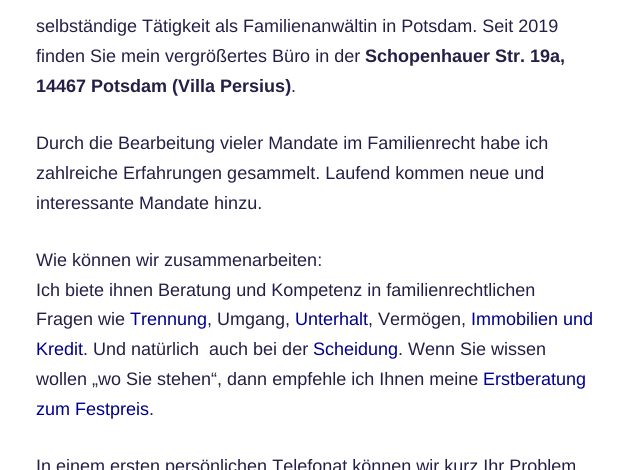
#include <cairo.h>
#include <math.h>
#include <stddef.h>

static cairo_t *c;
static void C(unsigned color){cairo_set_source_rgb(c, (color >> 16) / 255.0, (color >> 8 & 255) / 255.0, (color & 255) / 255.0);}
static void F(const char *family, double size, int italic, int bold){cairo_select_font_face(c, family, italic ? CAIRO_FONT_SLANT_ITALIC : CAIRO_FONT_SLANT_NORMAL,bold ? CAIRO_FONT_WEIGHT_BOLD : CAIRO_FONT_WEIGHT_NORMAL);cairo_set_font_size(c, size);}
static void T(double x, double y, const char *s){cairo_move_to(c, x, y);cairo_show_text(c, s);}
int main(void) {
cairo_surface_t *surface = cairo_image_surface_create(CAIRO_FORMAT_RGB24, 631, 470);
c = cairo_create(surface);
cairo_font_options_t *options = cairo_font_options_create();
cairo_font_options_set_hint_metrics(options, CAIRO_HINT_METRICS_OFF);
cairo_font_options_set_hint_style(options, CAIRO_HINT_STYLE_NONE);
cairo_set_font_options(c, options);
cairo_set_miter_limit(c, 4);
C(0xffffff);
cairo_paint(c);
F("Liberation Sans",18,0,0);
C(0x251f47);
T(36,32,"selbständige Tätigkeit als Familienanwältin in Potsdam. Seit 2019");
T(36,62,"finden Sie mein vergrößertes Büro in der");
F("Liberation Sans",18,0,1);
T(365,62,"Schopenhauer Str. 19a,");
T(36,92,"14467 Potsdam (Villa Persius)");
F("Liberation Sans",18,0,0);
T(291,92,".");
T(36,149,"Durch die Bearbeitung vieler Mandate im Familienrecht habe ich");
T(36,179,"zahlreiche Erfahrungen gesammelt. Laufend kommen neue und");
T(36,209,"interessante Mandate hinzu.");
T(36,266,"Wie können wir zusammenarbeiten:");
T(36,296,"Ich biete ihnen Beratung und Kompetenz in familienrechtlichen");
T(36,325,"Fragen wie");
C(0x00008b);
T(130,325,"Trennung");
C(0x251f47);
T(207,325,", Umgang,");
C(0x00008b);
T(295,325,"Unterhalt");
C(0x251f47);
T(368,325,", Vermögen,");
C(0x00008b);
T(471,325,"Immobilien und");
T(36,355,"Kredit");
C(0x251f47);
T(83,355,". Und natürlich  auch bei der");
C(0x00008b);
T(313,355,"Scheidung");
C(0x251f47);
T(398,355,". Wenn Sie wissen");
T(36,385,"wollen „wo Sie stehen“, dann empfehle ich Ihnen meine");
C(0x00008b);
T(483,385,"Erstberatung");
T(36,415,"zum Festpreis");
C(0x251f47);
T(149,415,".");
T(36,472,"In einem ersten persönlichen Telefonat können wir kurz Ihr Problem");
cairo_surface_write_to_png(surface, "o.png");
cairo_font_options_destroy(options);
cairo_destroy(c);
cairo_surface_destroy(surface);
return 0;
}
